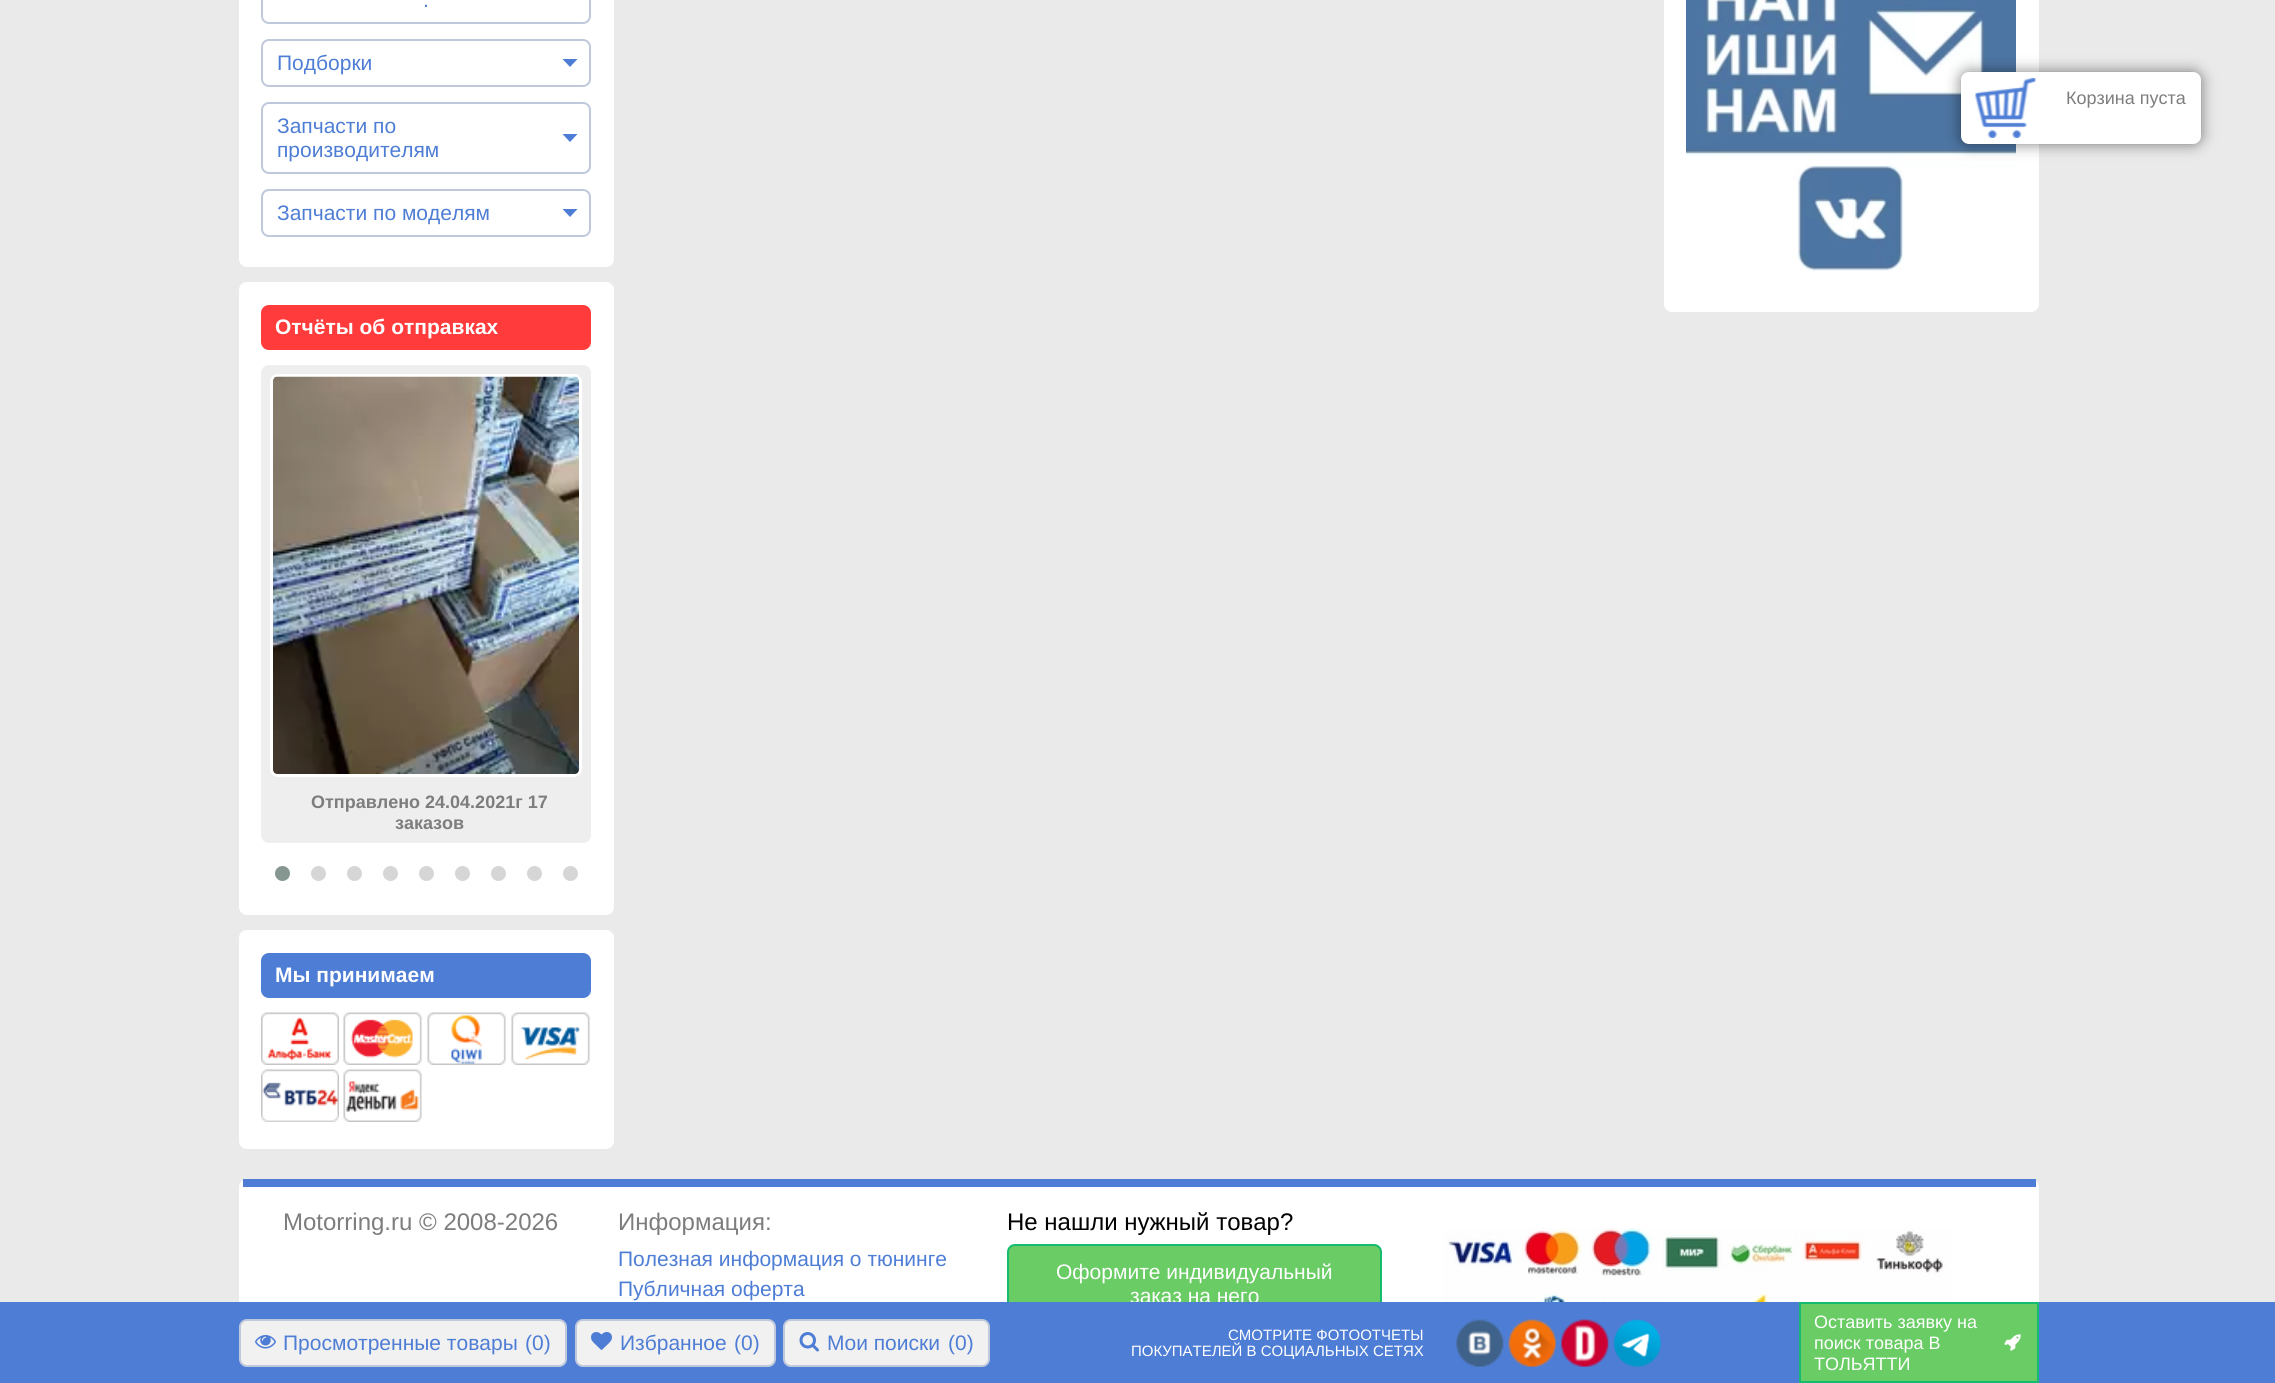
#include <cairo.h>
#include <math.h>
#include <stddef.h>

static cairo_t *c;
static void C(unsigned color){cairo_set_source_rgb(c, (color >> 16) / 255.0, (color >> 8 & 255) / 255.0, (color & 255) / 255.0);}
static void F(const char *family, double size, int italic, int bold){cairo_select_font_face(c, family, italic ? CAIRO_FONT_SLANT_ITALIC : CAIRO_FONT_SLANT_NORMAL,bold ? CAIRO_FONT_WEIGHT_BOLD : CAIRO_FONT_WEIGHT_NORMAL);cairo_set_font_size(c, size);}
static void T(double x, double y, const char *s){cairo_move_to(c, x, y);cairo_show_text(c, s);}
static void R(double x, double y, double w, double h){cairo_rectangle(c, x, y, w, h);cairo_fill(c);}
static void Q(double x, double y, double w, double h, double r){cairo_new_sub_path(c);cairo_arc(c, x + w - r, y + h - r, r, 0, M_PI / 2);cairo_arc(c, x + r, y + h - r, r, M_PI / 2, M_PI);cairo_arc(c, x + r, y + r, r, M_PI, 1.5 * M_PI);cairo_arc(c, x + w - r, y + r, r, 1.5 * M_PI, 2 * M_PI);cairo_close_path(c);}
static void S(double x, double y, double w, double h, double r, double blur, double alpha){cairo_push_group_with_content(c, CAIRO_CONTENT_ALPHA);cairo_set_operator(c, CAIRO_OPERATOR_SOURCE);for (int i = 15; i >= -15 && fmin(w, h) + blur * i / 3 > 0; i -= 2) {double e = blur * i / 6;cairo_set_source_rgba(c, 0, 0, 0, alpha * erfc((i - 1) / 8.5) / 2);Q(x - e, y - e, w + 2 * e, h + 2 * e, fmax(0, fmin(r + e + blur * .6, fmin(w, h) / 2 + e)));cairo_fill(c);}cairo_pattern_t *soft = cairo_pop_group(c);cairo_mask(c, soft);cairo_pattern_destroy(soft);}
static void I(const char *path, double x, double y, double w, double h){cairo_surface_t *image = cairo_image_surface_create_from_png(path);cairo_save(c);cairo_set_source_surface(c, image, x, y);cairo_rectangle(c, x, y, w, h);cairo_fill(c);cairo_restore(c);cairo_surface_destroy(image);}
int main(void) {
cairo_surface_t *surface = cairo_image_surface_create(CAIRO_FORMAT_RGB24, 2275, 1383);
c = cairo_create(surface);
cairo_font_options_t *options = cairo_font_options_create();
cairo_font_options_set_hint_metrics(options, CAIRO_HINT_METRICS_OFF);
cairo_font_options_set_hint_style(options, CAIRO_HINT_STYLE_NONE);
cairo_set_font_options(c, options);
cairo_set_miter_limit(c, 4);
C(0xeaeaea);
cairo_paint(c);
C(0xffffff);
Q(239,-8,375,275,8);
cairo_fill(c);
Q(262,-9,328,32,7);
C(0xbfc9db);
cairo_stroke(c);
F("Liberation Sans",21,0,0);
C(0x4e7dd5);
T(423,7,".");
Q(262,40,328,46,7);
C(0xbfc9db);
cairo_stroke(c);
C(0x4e7dd5);
T(277,70,"Подборки");
cairo_new_path(c);
cairo_move_to(c,562.5,59);
cairo_line_to(c,577.5,59);
cairo_line_to(c,570,67);
cairo_close_path(c);
cairo_fill(c);
Q(262,103,328,70,7);
C(0xbfc9db);
cairo_stroke(c);
C(0x4e7dd5);
T(277,133,"Запчасти по");
cairo_new_path(c);
cairo_move_to(c,562.5,134);
cairo_line_to(c,577.5,134);
cairo_line_to(c,570,142);
cairo_close_path(c);
cairo_fill(c);
T(277,157,"производителям");
Q(262,190,328,46,7);
C(0xbfc9db);
cairo_stroke(c);
C(0x4e7dd5);
T(277,220,"Запчасти по моделям");
cairo_new_path(c);
cairo_move_to(c,562.5,209);
cairo_line_to(c,577.5,209);
cairo_line_to(c,570,217);
cairo_close_path(c);
cairo_fill(c);
C(0xffffff);
Q(239,282,375,633,8);
cairo_fill(c);
C(0xff3b3b);
Q(261,305,330,45,8);
cairo_fill(c);
F("Liberation Sans",21,0,1);
C(0xffffff);
T(275,334,"Отчёты об отправках");
C(0xeeeeee);
Q(262,366,328,476,7);
cairo_fill_preserve(c);
cairo_stroke(c);
Q(271.5,375.5,309,400,6.5);
C(0xffffff);
cairo_set_line_width(c,3);
cairo_stroke(c);
I("1.png",273,376,306,398);
F("Liberation Sans",18,0,1);
C(0x7d7d7d);
T(311,808,"Отправлено 24.04.2021г 17");
T(395,829,"заказов");
C(0x869791);
cairo_new_path(c);
cairo_arc(c,282.5,873.5,7.5,0,2 * M_PI);
cairo_fill(c);
C(0xd6d6d6);
cairo_arc(c,318.5,873.5,7.5,0,2 * M_PI);
cairo_fill(c);
cairo_arc(c,354.5,873.5,7.5,0,2 * M_PI);
cairo_fill(c);
cairo_arc(c,390.5,873.5,7.5,0,2 * M_PI);
cairo_fill(c);
cairo_arc(c,426.5,873.5,7.5,0,2 * M_PI);
cairo_fill(c);
cairo_arc(c,462.5,873.5,7.5,0,2 * M_PI);
cairo_fill(c);
cairo_arc(c,498.5,873.5,7.5,0,2 * M_PI);
cairo_fill(c);
cairo_arc(c,534.5,873.5,7.5,0,2 * M_PI);
cairo_fill(c);
cairo_arc(c,570.5,873.5,7.5,0,2 * M_PI);
cairo_fill(c);
C(0xffffff);
Q(239,930,375,219,8);
cairo_fill(c);
C(0x4e7dd5);
Q(261,953,330,45,8);
cairo_fill(c);
F("Liberation Sans",21,0,1);
C(0xffffff);
T(275,982,"Мы принимаем");
I("2.png",261,1012,78,53);
I("3.png",343,1012,79,53);
I("4.png",427,1012,79,53);
I("5.png",511,1012,79,53);
I("6.png",261,1069,78,53);
I("7.png",343,1069,79,53);
Q(1664,-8,375,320,8);
cairo_fill(c);
I("8.png",1686,0,330,271);
C(0x000000);
S(1961,72,240,72,8,7.5,.5);
C(0xffffff);
Q(1961,72,240,72,8);
cairo_fill(c);
I("9.png",1975,78,61,60);
F("Liberation Sans",18,0,0);
C(0x7d7d7d);
T(2066,104,"Корзина пуста");
C(0xffffff);
Q(239,1179,1800,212,8);
cairo_fill(c);
C(0x4e7dd5);
R(243,1179,1793,8);
F("Liberation Sans",24,0,0);
C(0x7d7d7d);
T(283,1230,"Motorring.ru © 2008-2026");
T(618,1230,"Информация:");
F("Liberation Sans",21,0,0);
C(0x4e7dd5);
T(618,1266,"Полезная информация о тюнинге");
T(618,1296,"Публичная оферта");
F("Liberation Sans",24,0,0);
C(0x000000);
T(1007,1230,"Не нашли нужный товар?");
C(0x69cc64);
Q(1008,1245,373,79,7);
cairo_fill_preserve(c);
C(0x14bb70);
cairo_set_line_width(c,2);
cairo_stroke(c);
F("Liberation Sans",21,0,0);
C(0xffffff);
T(1056,1279,"Оформите индивидуальный");
T(1130,1303,"заказ на него");
I("10.png",1443,1228,510,74);
C(0x4e7dd5);
R(0,1302,2275,81);
C(0xf1f1f1);
Q(240,1320,326,46,7);
cairo_fill_preserve(c);
C(0xbfc9db);
cairo_stroke(c);
I("11.png",255,1335,21,14);
C(0x4e7dd5);
T(283,1350,"Просмотренные товары");
T(525,1350,"(0)");
C(0xf1f1f1);
Q(576,1320,199,46,7);
cairo_fill_preserve(c);
C(0xbfc9db);
cairo_stroke(c);
I("12.png",591,1332,21,18);
C(0x4e7dd5);
T(620,1350,"Избранное");
T(734,1350,"(0)");
C(0xf1f1f1);
Q(784,1320,205,46,7);
cairo_fill_preserve(c);
C(0xbfc9db);
cairo_stroke(c);
I("13.png",799,1332,20,20);
C(0x4e7dd5);
T(827,1350,"Мои поиски");
T(948,1350,"(0)");
F("Liberation Sans",15,0,0);
C(0xffffff);
T(1228,1340,"СМОТРИТЕ ФОТООТЧЕТЫ");
T(1131,1356,"ПОКУПАТЕЛЕЙ В СОЦИАЛЬНЫХ СЕТЯХ");
I("14.png",1456,1319,48,48);
I("15.png",1508,1319,48,48);
I("16.png",1561,1319,48,48);
I("17.png",1613,1319,48,48);
C(0x69cc64);
cairo_rectangle(c,1800,1303,238,79);
cairo_fill_preserve(c);
C(0x14bb70);
cairo_stroke(c);
F("Liberation Sans",18,0,0);
C(0xffffff);
T(1814,1328,"Оставить заявку на");
T(1814,1349,"поиск товара В");
T(1814,1370,"ТОЛЬЯТТИ");
I("18.png",2004,1334,17,17);
cairo_surface_write_to_png(surface, "o.png");
cairo_font_options_destroy(options);
cairo_destroy(c);
cairo_surface_destroy(surface);
return 0;
}
